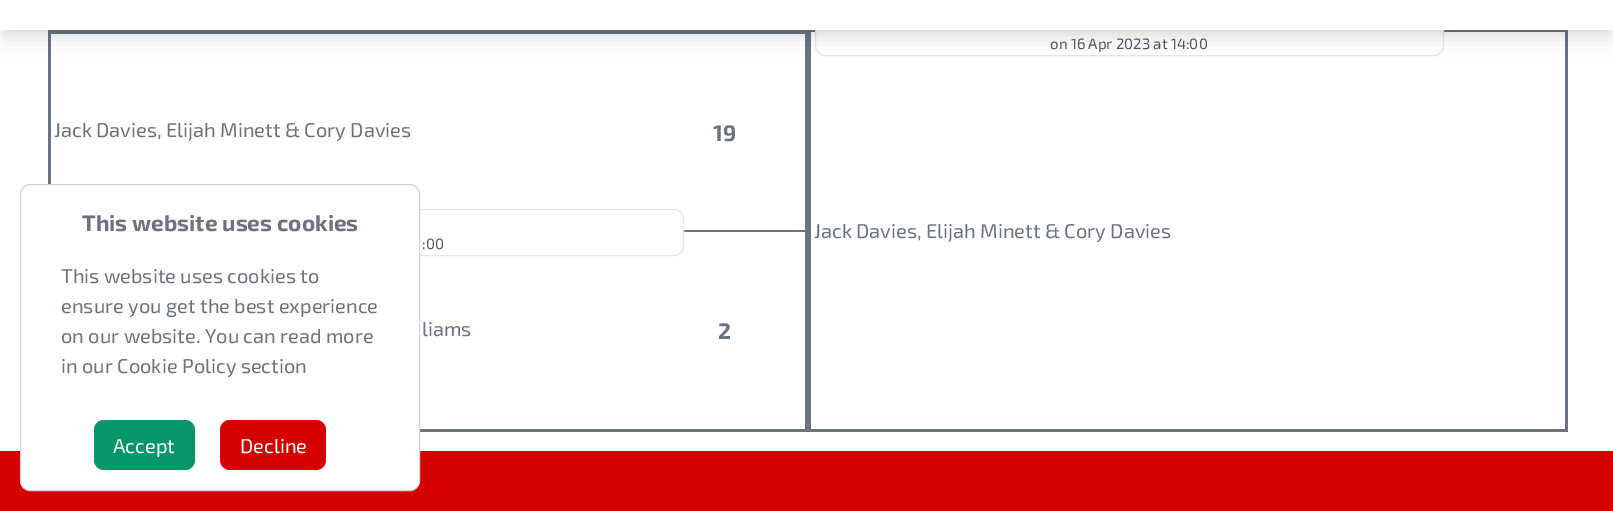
%!PS
<< /PageSize [1613 511] /PageUsesTransparency true >> setpagedevice
/rgb { dup -16 bitshift 255 div exch dup -8 bitshift 255 and 255 div exch 255 and 255 div setrgbcolor } def
/font { [ exch dup neg 0 0 3 -1 roll 0 0 ] selectfont } def
/text { moveto show } def
/alpha { dup .setfillconstantalpha .setstrokeconstantalpha } def
/roundrect { 5 dict begin { /r /h /w /y /x } { exch def } forall
  x r add y moveto x w add y 2 copy h add r arct x w add y h add x 1 index r arct
  x y h add x y r arct x y 2 copy exch w add exch r arct closepath end } def
/shadow { 12 dict begin { /a /b /q /h /w /y /x } { exch def } forall gsave /was 0 def
  9 -2 -9 { dup b mul 4 div /e exch def 1 sub .425 mul 2.718 exch exp 1 add a .99 .min exch div /now exch def
    1 1 now sub 1 was sub div sub alpha /was now def
    w h .min e 2 mul add 0 gt { x e sub y e sub w e 2 mul add h e 2 mul add
      q e add b .6 mul add w h .min 2 div e add .min 0 .max roundrect fill } if } for grestore end } def
0 .pushpdf14devicefilter
0 511 translate 1 -1 scale
4 setmiterlimit
/s1 { /Exo2-Regular 20 font 16#6B7280 rgb } def
/s2 { /Exo2-Bold 22.5 font 16#6B7280 rgb } def
/s3 { /Exo2-Regular 15 font 16#4B5563 rgb } def
/s4 { /Exo2-Regular 20 font 16#FFFFFF rgb } def
16#FFFFFF rgb
0 0 1613 511 rectfill
16#6B7280 rgb
48 30 760 4 rectfill
805 31 3 200 rectfill
48 31 3 153 rectfill
808 30 760 2 rectfill
1565 31 3 400 rectfill
808 429 760 3 rectfill
808 31 3 400 rectfill
16#FFFFFF rgb
815.5 9.5 628 46 9.5 roundrect gsave fill grestore
16#E5E7EB rgb
stroke
16#000000 rgb
3 -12 1608 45 0 4 0.05 shadow
4 -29 1606 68 0 9.5 0.1 shadow
16#FFFFFF rgb
0 0 1613 30 rectfill
16#6B7280 rgb
684 230 124 2 rectfill
s1
(Jack Davies, Elijah Minett & Cory Davies) 54 137 text
s2
(19) 713 141 text
805 231 3 200 rectfill
420 429 388 3 rectfill
16#E5E7EB rgb
55.5 209.5 628 46 9.5 roundrect stroke
s3
(:00) 422 249 text
s1
(liams) 422 336 text
s2
(2) 718 339 text
s3
(on 16 Apr 2023 at 14:00) 1050 49 text
s1
(Jack Davies, Elijah Minett & Cory Davies) 814 238 text
16#D50000 rgb
0 451 1613 60 rectfill
16#FFFFFF rgb
20.5 184.5 399 306 9.5 roundrect gsave fill grestore
16#D1D5DB rgb
stroke
s2
(This website uses cookies) 82 231 text
s1
(This website uses cookies to) 61 283 text
(ensure you get the best experience) 61 313 text
(on our website. You can read more) 61 343 text
(in our Cookie Policy section) 61 373 text
16#059669 rgb
94 420 101 50 10 roundrect fill
s4
(Accept) 113 453 text
16#D50000 rgb
220 420 106 50 10 roundrect fill
s4
(Decline) 240 453 text
.poppdf14devicefilter showpage
